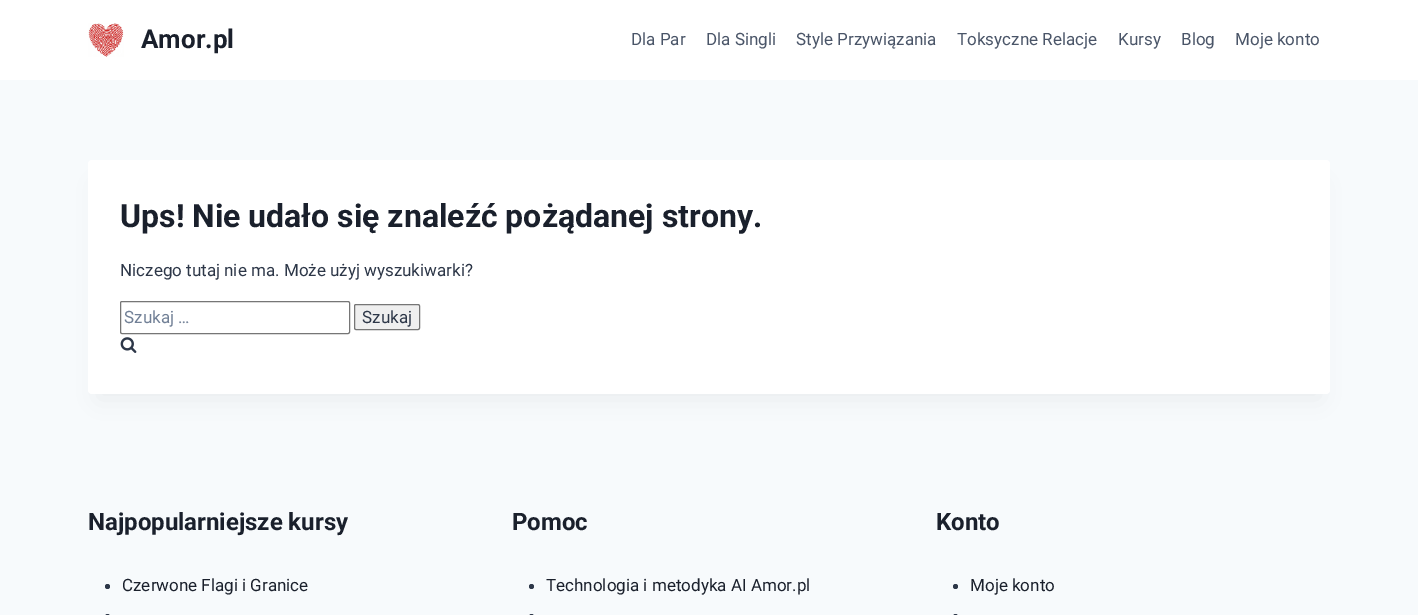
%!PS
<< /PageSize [1418 615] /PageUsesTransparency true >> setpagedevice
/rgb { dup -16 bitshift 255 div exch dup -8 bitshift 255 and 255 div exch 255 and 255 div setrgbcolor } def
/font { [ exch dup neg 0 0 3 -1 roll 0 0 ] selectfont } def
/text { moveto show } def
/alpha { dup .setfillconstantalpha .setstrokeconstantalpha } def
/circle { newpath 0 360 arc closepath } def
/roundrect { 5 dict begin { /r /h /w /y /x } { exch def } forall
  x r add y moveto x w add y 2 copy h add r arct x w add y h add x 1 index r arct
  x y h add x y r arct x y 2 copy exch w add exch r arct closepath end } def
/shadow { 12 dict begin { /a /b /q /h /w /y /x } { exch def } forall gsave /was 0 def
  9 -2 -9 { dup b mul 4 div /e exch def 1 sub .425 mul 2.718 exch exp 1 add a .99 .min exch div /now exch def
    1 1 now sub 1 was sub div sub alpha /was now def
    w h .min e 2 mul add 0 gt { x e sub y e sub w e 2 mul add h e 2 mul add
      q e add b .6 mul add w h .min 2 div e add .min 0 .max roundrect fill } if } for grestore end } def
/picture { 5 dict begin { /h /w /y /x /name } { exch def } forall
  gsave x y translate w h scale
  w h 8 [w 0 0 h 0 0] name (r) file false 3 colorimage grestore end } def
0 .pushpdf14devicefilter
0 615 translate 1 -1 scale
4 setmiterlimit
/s1 { /Roboto-Bold 26 font 16#1A202C rgb } def
/s2 { /Roboto-Regular 17 font 16#4A5568 rgb } def
/s3 { /Roboto-Bold 32 font 16#1A202C rgb } def
/s4 { /Roboto-Regular 17 font 16#2D3748 rgb } def
/s5 { /Roboto-Regular 17 font 16#718096 rgb } def
/s6 { /Roboto-Bold 24 font 16#1A202C rgb } def
/s7 { /Roboto-Regular 17 font 16#1A202C rgb } def
16#F7FAFC rgb
0 0 1418 615 rectfill
16#FFFFFF rgb
0 0 1418 80 rectfill
(pic1.raw) 88 23 36 34 picture
s1
(Amor.pl) 141 48 text
s2
(Dla Par) 631 45 text
(Dla Singli) 706 45 text
(Style Przywiązania) 796 45 text
(Toksyczne Relacje) 957 45 text
(Kursy) 1118 45 text
(Blog) 1181 45 text
(Moje konto) 1235 45 text
16#000000 rgb
98 185 1222 214 0 12.5 0.05 shadow
16#FFFFFF rgb
88 160 1242 234 4 roundrect fill
s3
(Ups! Nie udało się znaleźć pożądanej strony.) 120 227 text
s4
(Niczego tutaj nie ma. Może użyj wyszukiwarki?) 120 276 text
16#767676 rgb
120.5 301.5 229 32 1.5 roundrect stroke
s5
(Szukaj …) 124 323 text
16#EFEFEF rgb
354.5 304.5 65 25 1.5 roundrect gsave fill grestore
16#767676 rgb
stroke
s4
(Szukaj) 362 323 text
(pic2.raw) 120 337 17 16 picture
s6
(Najpopularniejsze kursy) 88 530 text
16#2D3748 rgb
107.5 586.5 2.5 circle fill
s7
(Czerwone Flagi i Granice) 122 591 text
16#2D3748 rgb
105 614 5 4 2.5 roundrect fill
s6
(Pomoc) 512 530 text
16#2D3748 rgb
531.5 586.5 2.5 circle fill
s7
(Technologia i metodyka AI Amor.pl) 546 591 text
16#2D3748 rgb
529 614 5 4 2.5 roundrect fill
s6
(Konto) 936 530 text
16#2D3748 rgb
955.5 586.5 2.5 circle fill
s7
(Moje konto) 970 591 text
16#2D3748 rgb
953 614 5 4 2.5 roundrect fill
.poppdf14devicefilter showpage
